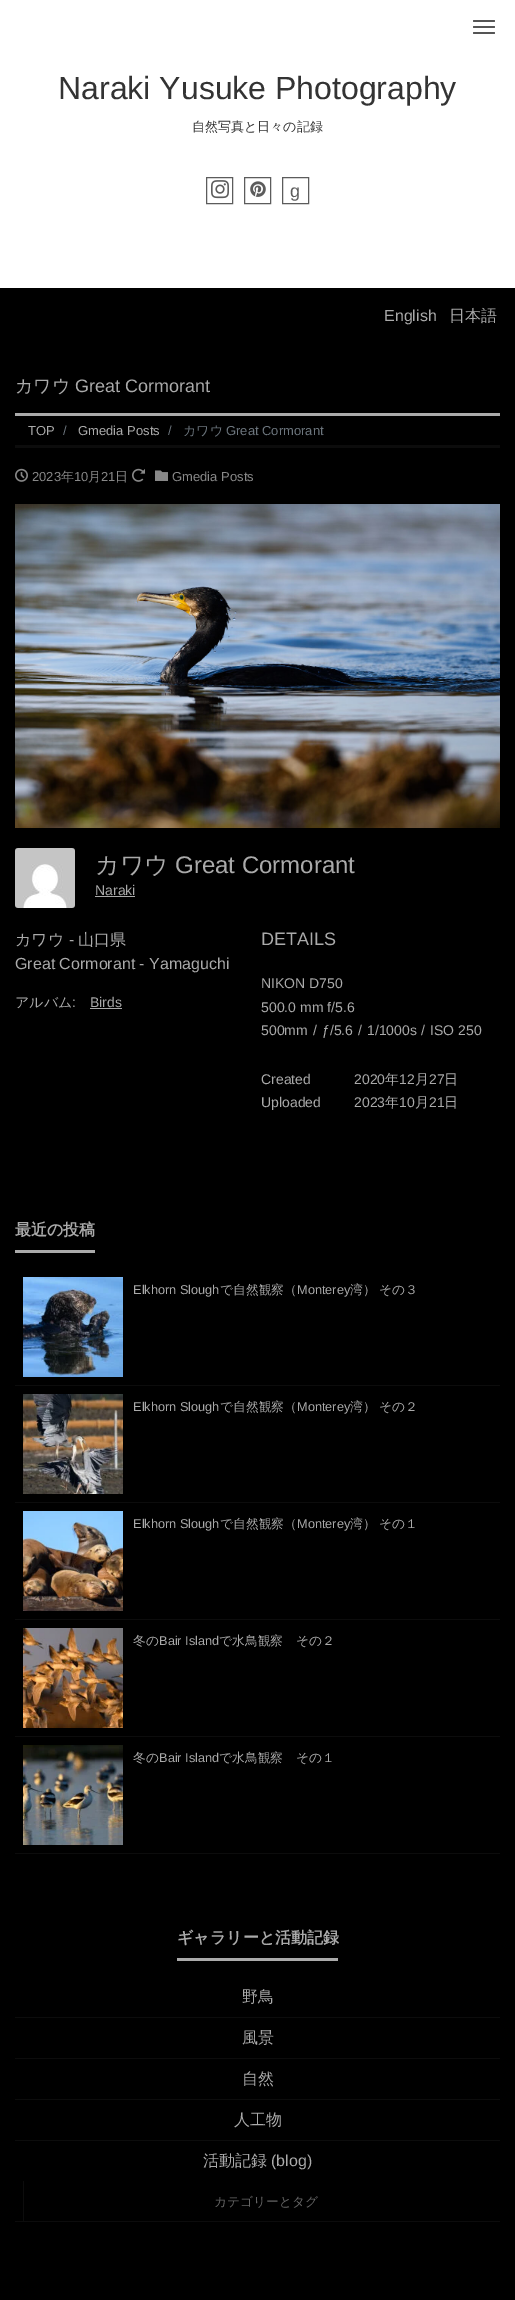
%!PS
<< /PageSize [515 2300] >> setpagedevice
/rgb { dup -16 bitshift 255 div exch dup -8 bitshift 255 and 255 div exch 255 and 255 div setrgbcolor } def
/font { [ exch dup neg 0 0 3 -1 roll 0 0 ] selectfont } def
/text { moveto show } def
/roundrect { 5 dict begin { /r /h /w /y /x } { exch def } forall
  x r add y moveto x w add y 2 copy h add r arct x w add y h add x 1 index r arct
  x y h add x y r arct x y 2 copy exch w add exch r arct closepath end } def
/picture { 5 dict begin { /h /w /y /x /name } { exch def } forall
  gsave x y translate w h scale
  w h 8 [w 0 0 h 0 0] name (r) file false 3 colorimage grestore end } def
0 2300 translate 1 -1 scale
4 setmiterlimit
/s1 { /LiberationSans-Regular 32 font 16#333333 rgb } def
/s2 { /WenQuanYiZenHei-Medium 13 font 16#333333 rgb } def
/s3 { /LiberationSans-Regular 18 font 16#5C5C5C rgb } def
/s4 { /LiberationSans-Regular 16 font 16#AAAAAA rgb } def
/s5 { /WenQuanYiZenHei-Medium 16 font 16#AAAAAA rgb } def
/s6 { /WenQuanYiZenHei-Medium 18 font 16#AAAAAA rgb } def
/s7 { /LiberationSans-Regular 18 font 16#AAAAAA rgb } def
/s8 { /LiberationSans-Regular 13 font 16#AAAAAA rgb } def
/s9 { /LiberationSans-Regular 13 font 16#6C757D rgb } def
/s10 { /WenQuanYiZenHei-Medium 13 font 16#6C757D rgb } def
/s11 { /LiberationSans-Regular 13 font 16#888888 rgb } def
/s12 { /WenQuanYiZenHei-Medium 13 font 16#888888 rgb } def
/s13 { /WenQuanYiZenHei-Medium 24 font 16#AAAAAA rgb } def
/s14 { /LiberationSans-Regular 24 font 16#AAAAAA rgb } def
/s15 { /LiberationSans-Regular 14 font 16#AAAAAA rgb } def
/s16 { /WenQuanYiZenHei-Medium 14 font 16#AAAAAA rgb } def
/s17 { /WenQuanYiZenHei-Bold 16 font 16#AAAAAA rgb } def
/s18 { /LiberationSans-Regular 12.75 font 16#AAAAAA rgb } def
/s19 { /WenQuanYiZenHei-Medium 12.75 font 16#AAAAAA rgb } def
/s20 { /WenQuanYiZenHei-Medium 12.75 font 16#666666 rgb } def
16#000000 rgb
0 0 515 2300 rectfill
16#FFFFFF rgb
0 0 515 288 rectfill
16#555555 rgb
473 20 22 2 1 roundrect fill
473 26 22 2 1 roundrect fill
473 32 22 2 1 roundrect fill
s1
(Naraki Yusuke Photography) 58 99 text
s2
(自然写真と日々の記録) 192 131 text
16#5C5C5C rgb
206.5 177.5 26 26 rectstroke
(pic1.raw) 211 180 18 19 picture
244.5 177.5 26 26 rectstroke
(pic2.raw) 250 181 16 16 picture
282.5 177.5 26 26 rectstroke
s3
(g) 290 197 text
s4
(English) 384 321 text
s5
(日本語) 449 321 text
s6
(カワウ) 15 392 text
s7
(Great Cormorant) 75 392 text
15 413 485 3 rectfill
16#0C0C0C rgb
15 445 485 3 rectfill
s8
(TOP) 28 435 text
s9
(/) 63 435 text
s8
(Gmedia Posts) 78 435 text
s9
(/) 168 435 text
s10
(カワウ) 183 435 text
s9
(Great Cormorant) 226 435 text
(pic3.raw) 15 468 13 14 picture
s11
(2023) 32 481 text
s12
(年) 61 481 text
s11
(10) 74 481 text
s12
(月) 88 481 text
s11
(21) 101 481 text
s12
(日) 115 481 text
(pic4.raw) 132 468 13 14 picture
(pic5.raw) 155 470 13 11 picture
s11
(Gmedia Posts) 172 481 text
(pic6.raw) 15 504 485 324 picture
(pic7.raw) 15 848 60 60 picture
s13
(カワウ) 95 873 text
s14
(Great Cormorant) 175 873 text
s15
(Naraki) 95 895 text
95 896 40 1 rectfill
s5
(カワウ) 15 945 text
s4
(-) 69 945 text
s5
(山口県) 78 945 text
s4
(Great Cormorant - Yamaguchi) 15 969 text
s16
(アルバム) 15 1007 text
s15
(:) 72 1007 text
(Birds) 90 1007 text
90 1008 32 1 rectfill
s7
(DETAILS) 261 945 text
s15
(NIKON D750) 261 988 text
(500.0 mm f/5.6) 261 1012 text
(500mm) 261 1035 text
(/) 313 1035 text
(ƒ/5.6) 322 1035 text
(/) 358 1035 text
(1/1000s) 367 1035 text
(/) 421 1035 text
(ISO 250) 430 1035 text
(Created) 261 1084 text
(2020) 354 1084 text
s16
(年) 385 1084 text
s15
(12) 399 1084 text
s16
(月) 415 1084 text
s15
(27) 429 1084 text
s16
(日) 444 1084 text
s15
(Uploaded) 261 1107 text
(2023) 354 1107 text
s16
(年) 385 1107 text
s15
(10) 399 1107 text
s16
(月) 415 1107 text
s15
(21) 429 1107 text
s16
(日) 444 1107 text
15 1250 80 3 rectfill
s17
(最近の投稿) 15 1235 text
16#0C0C0C rgb
15 1385 485 1 rectfill
(pic8.raw) 23 1277 100 100 picture
s18
(Elkhorn Slough) 133 1294 text
s19
(で自然観察（) 220 1294 text
s18
(Monterey) 297 1294 text
s19
(湾） その３) 350 1294 text
16#0C0C0C rgb
15 1502 485 1 rectfill
(pic9.raw) 23 1394 100 100 picture
s18
(Elkhorn Slough) 133 1411 text
s19
(で自然観察（) 220 1411 text
s18
(Monterey) 297 1411 text
s19
(湾） その２) 350 1411 text
16#0C0C0C rgb
15 1619 485 1 rectfill
(pic10.raw) 23 1511 100 100 picture
s18
(Elkhorn Slough) 133 1528 text
s19
(で自然観察（) 220 1528 text
s18
(Monterey) 297 1528 text
s19
(湾） その１) 350 1528 text
16#0C0C0C rgb
15 1736 485 1 rectfill
(pic11.raw) 23 1628 100 100 picture
s19
(冬の) 133 1645 text
s18
(Bair Island) 159 1645 text
s19
(で水鳥観察　その２) 219 1645 text
16#0C0C0C rgb
15 1853 485 1 rectfill
(pic12.raw) 23 1745 100 100 picture
s19
(冬の) 133 1762 text
s18
(Bair Island) 159 1762 text
s19
(で水鳥観察　その１) 219 1762 text
177 1958 161 3 rectfill
s17
(ギャラリーと活動記録) 177 1943 text
16#0C0C0C rgb
15 2017 485 1 rectfill
s5
(野鳥) 242 2002 text
16#0C0C0C rgb
15 2058 485 1 rectfill
s5
(風景) 242 2043 text
16#0C0C0C rgb
15 2099 485 1 rectfill
s5
(自然) 242 2084 text
16#0C0C0C rgb
15 2140 485 1 rectfill
s5
(人工物) 234 2125 text
16#0C0C0C rgb
15 2221 485 1 rectfill
s5
(活動記録) 203 2166 text
s4
(\(blog\)) 271 2166 text
16#0C0C0C rgb
23 2181 1 40 rectfill
s20
(カテゴリーとタグ) 214 2206 text
showpage
